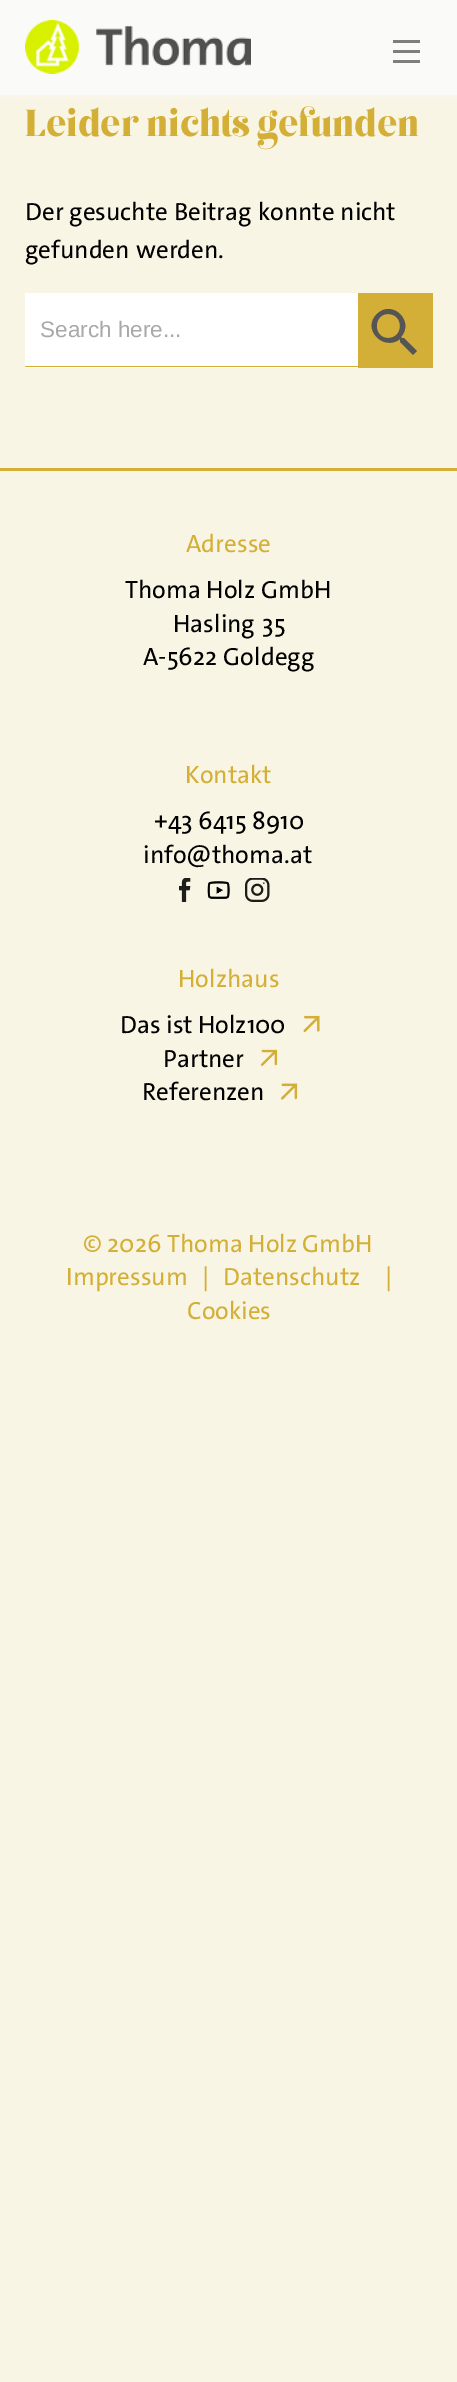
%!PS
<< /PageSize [457 2382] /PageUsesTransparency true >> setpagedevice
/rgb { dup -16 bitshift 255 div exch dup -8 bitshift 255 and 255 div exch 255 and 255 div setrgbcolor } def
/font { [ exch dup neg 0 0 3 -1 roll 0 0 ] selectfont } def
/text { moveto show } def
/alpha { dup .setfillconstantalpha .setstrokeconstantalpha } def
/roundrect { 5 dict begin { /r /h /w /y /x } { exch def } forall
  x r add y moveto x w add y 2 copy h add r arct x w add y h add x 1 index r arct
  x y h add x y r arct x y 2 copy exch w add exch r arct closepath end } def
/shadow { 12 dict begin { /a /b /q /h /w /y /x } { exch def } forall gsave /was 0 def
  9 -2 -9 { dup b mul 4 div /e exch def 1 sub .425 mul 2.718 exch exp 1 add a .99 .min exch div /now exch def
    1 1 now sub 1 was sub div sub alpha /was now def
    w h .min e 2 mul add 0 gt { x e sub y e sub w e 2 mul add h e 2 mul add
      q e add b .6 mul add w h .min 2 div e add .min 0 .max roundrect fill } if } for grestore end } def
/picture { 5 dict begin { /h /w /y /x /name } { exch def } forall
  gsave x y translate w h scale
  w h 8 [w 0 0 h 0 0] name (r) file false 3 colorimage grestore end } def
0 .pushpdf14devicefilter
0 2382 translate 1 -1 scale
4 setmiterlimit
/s1 { /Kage-Black 45 font 16#D4AF37 rgb } def
/s2 { /LiberationSans-Regular 22.5 font 16#A9A9A9 rgb } def
/s3 { /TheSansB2-Medium 25 font 16#D4AF37 rgb } def
/s4 { /TheSansB2-Medium 25 font 16#000000 rgb } def
16#F9F5E5 rgb
0 0 457 2382 rectfill
16#FAFAFA rgb
0 0 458 95 0 6 0.5 shadow
16#FAFAF8 rgb
0 0 457 95 rectfill
(pic1.raw) 25 20 226 54 picture
16#7E7E7E rgb
393 40 27 3 rectfill
393 50 27 3 rectfill
393 60 27 3 rectfill
s1
(Leider nichts gefunden) 25 136 text
/TheSansB2-Medium 25 font
16#000000 rgb
25 220 moveto 0.5 0 32 (Der gesuchte Beitrag konnte nicht) widthshow
25 258 moveto 1 0 32 (gefunden werden.) widthshow
16#FFFFFF rgb
25 293 333 75 rectfill
16#D4AF37 rgb
25 366 333 1 rectfill
s2
(Search here...) 40 337 text
16#D4AF37 rgb
358 293 75 75 rectfill
16#555555 rgb
404 338 moveto 402 338 lineto 401 337 lineto 415 321 392 299 377 314 curveto 361 329 384 352 400 339 curveto 400 340 lineto 400 342 lineto 413 355 lineto 417 351 lineto closepath 388 338 moveto 373 338 373 314 388 314 curveto 404 314 404 338 388 338 curveto closepath fill
16#D4AF37 rgb
0 468 457 3 rectfill
s3
(Adresse) 186 552 text
s4
(Thoma Holz GmbH) 125 598 text
173 632 moveto 2 0 32 (Hasling 35) widthshow
143 665 moveto 1 0 32 (A-5622 Goldegg) widthshow
s3
(Kontakt) 185 783 text
s4
(+43 6415 8910) 154 829 text
(info@thoma.at) 143 863 text
(pic2.raw) 179 878 12 24 picture
(pic3.raw) 207 881 23 18 picture
(pic4.raw) 245 878 25 24 picture
s3
(Holzhaus) 178 987 text
s4
(Das ist Holz100) 120 1033 text
(pic5.raw) 303 1015 17 18 picture
(Partner) 163 1067 text
(pic6.raw) 260 1049 18 18 picture
(Referenzen) 142 1100 text
(pic7.raw) 280 1083 18 17 picture
s3
(© 2026 Thoma Holz GmbH) 83 1252 text
(Impressum) 66 1285 text
(|) 202 1285 text
(Datenschutz) 223 1285 text
(|) 385 1285 text
(Cookies) 187 1319 text
.poppdf14devicefilter showpage
